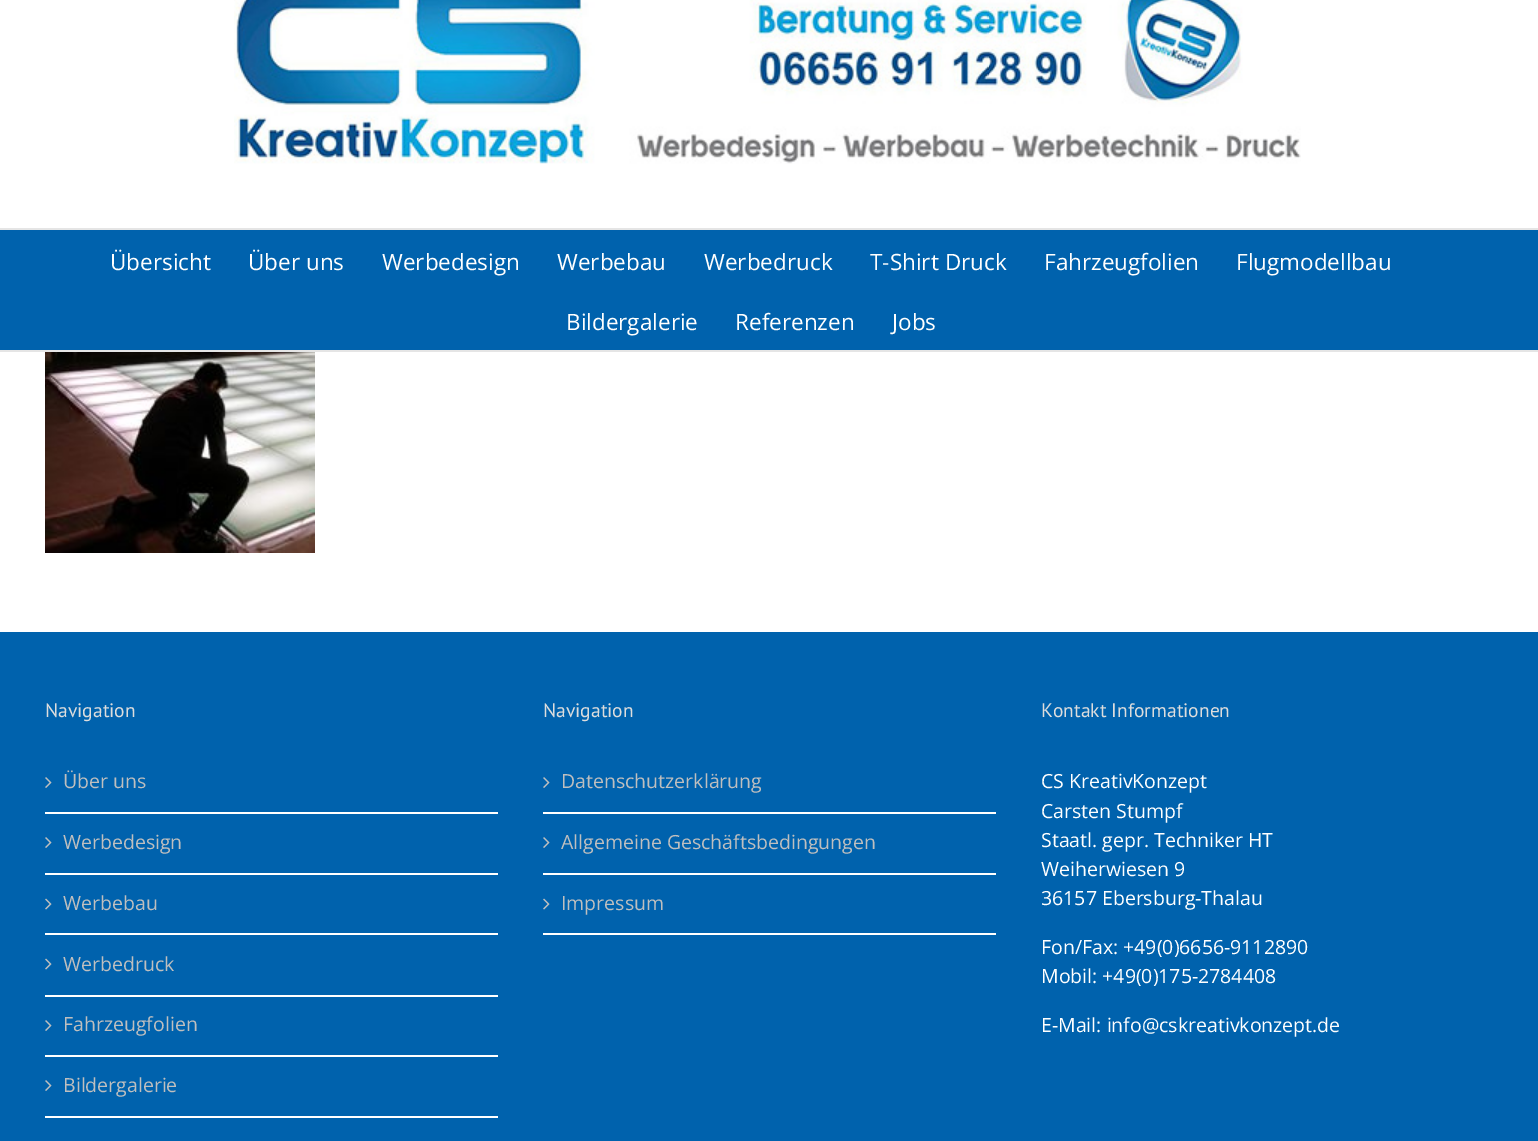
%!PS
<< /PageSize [1538 1141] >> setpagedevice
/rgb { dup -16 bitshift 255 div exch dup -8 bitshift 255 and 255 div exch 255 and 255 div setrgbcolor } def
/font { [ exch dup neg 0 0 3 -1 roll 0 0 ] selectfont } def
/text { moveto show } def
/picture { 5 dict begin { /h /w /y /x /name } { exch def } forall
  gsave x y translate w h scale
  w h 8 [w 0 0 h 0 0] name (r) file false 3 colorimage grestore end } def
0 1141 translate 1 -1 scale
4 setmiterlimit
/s1 { /OpenSans-Regular 22.5 font 16#FFFFFF rgb } def
/s2 { /PTSans-Regular 19.5 font 16#DDDDDD rgb } def
/s3 { /OpenSans-Regular 19.5 font 16#BFBFBF rgb } def
/s4 { /OpenSans-Regular 19.5 font 16#FFFFFF rgb } def
16#FFFFFF rgb
0 0 1538 1141 rectfill
16#E5E5E5 rgb
0 228 1538 2 rectfill
(pic1.raw) 234 0 1067 164 picture
16#0062AD rgb
0 230 1538 120 rectfill
16#E5E5E5 rgb
0 350 1538 2 rectfill
s1
(Übersicht) 110 270 text
(Über uns) 248 270 text
(Werbedesign) 382 270 text
(Werbebau) 557 270 text
(Werbedruck) 704 270 text
(T-Shirt Druck) 870 270 text
(Fahrzeugfolien) 1044 270 text
(Flugmodellbau) 1236 270 text
(Bildergalerie) 566 330 text
(Referenzen) 735 330 text
(Jobs) 892 330 text
(pic2.raw) 45 352 270 201 picture
16#0062AD rgb
0 632 1538 509 rectfill
s2
(Navigation) 45 717 text
16#FFFFFF rgb
45 812 453 2 rectfill
(pic3.raw) 45 777 7 11 picture
s3
(Über uns) 63 788 text
16#FFFFFF rgb
45 873 453 2 rectfill
(pic3.raw) 45 837 7 11 picture
s3
(Werbedesign) 63 849 text
16#FFFFFF rgb
45 933 453 2 rectfill
(pic4.raw) 45 898 7 12 picture
s3
(Werbebau) 63 910 text
16#FFFFFF rgb
45 995 453 2 rectfill
(pic4.raw) 45 958 7 12 picture
s3
(Werbedruck) 63 971 text
16#FFFFFF rgb
45 1055 453 2 rectfill
(pic3.raw) 45 1020 7 11 picture
s3
(Fahrzeugfolien) 63 1031 text
16#FFFFFF rgb
45 1116 453 2 rectfill
(pic3.raw) 45 1080 7 11 picture
s3
(Bildergalerie) 63 1092 text
s2
(Navigation) 543 717 text
16#FFFFFF rgb
543 812 453 2 rectfill
(pic3.raw) 543 777 7 11 picture
s3
(Datenschutzerklärung) 561 788 text
16#FFFFFF rgb
543 873 453 2 rectfill
(pic3.raw) 543 837 7 11 picture
s3
(Allgemeine Geschäftsbedingungen) 561 849 text
16#FFFFFF rgb
543 933 453 2 rectfill
(pic4.raw) 543 898 7 12 picture
s3
(Impressum) 561 910 text
s2
(Kontakt Informationen) 1041 717 text
s4
(CS KreativKonzept) 1041 788 text
(Carsten Stumpf) 1041 818 text
(Staatl. gepr. Techniker HT) 1041 847 text
(Weiherwiesen 9) 1041 876 text
(36157 Ebersburg-Thalau) 1041 905 text
(Fon/Fax: +49\(0\)6656-9112890) 1041 954 text
(Mobil: +49\(0\)175-2784408) 1041 983 text
(E-Mail: info@cskreativkonzept.de) 1041 1032 text
showpage
